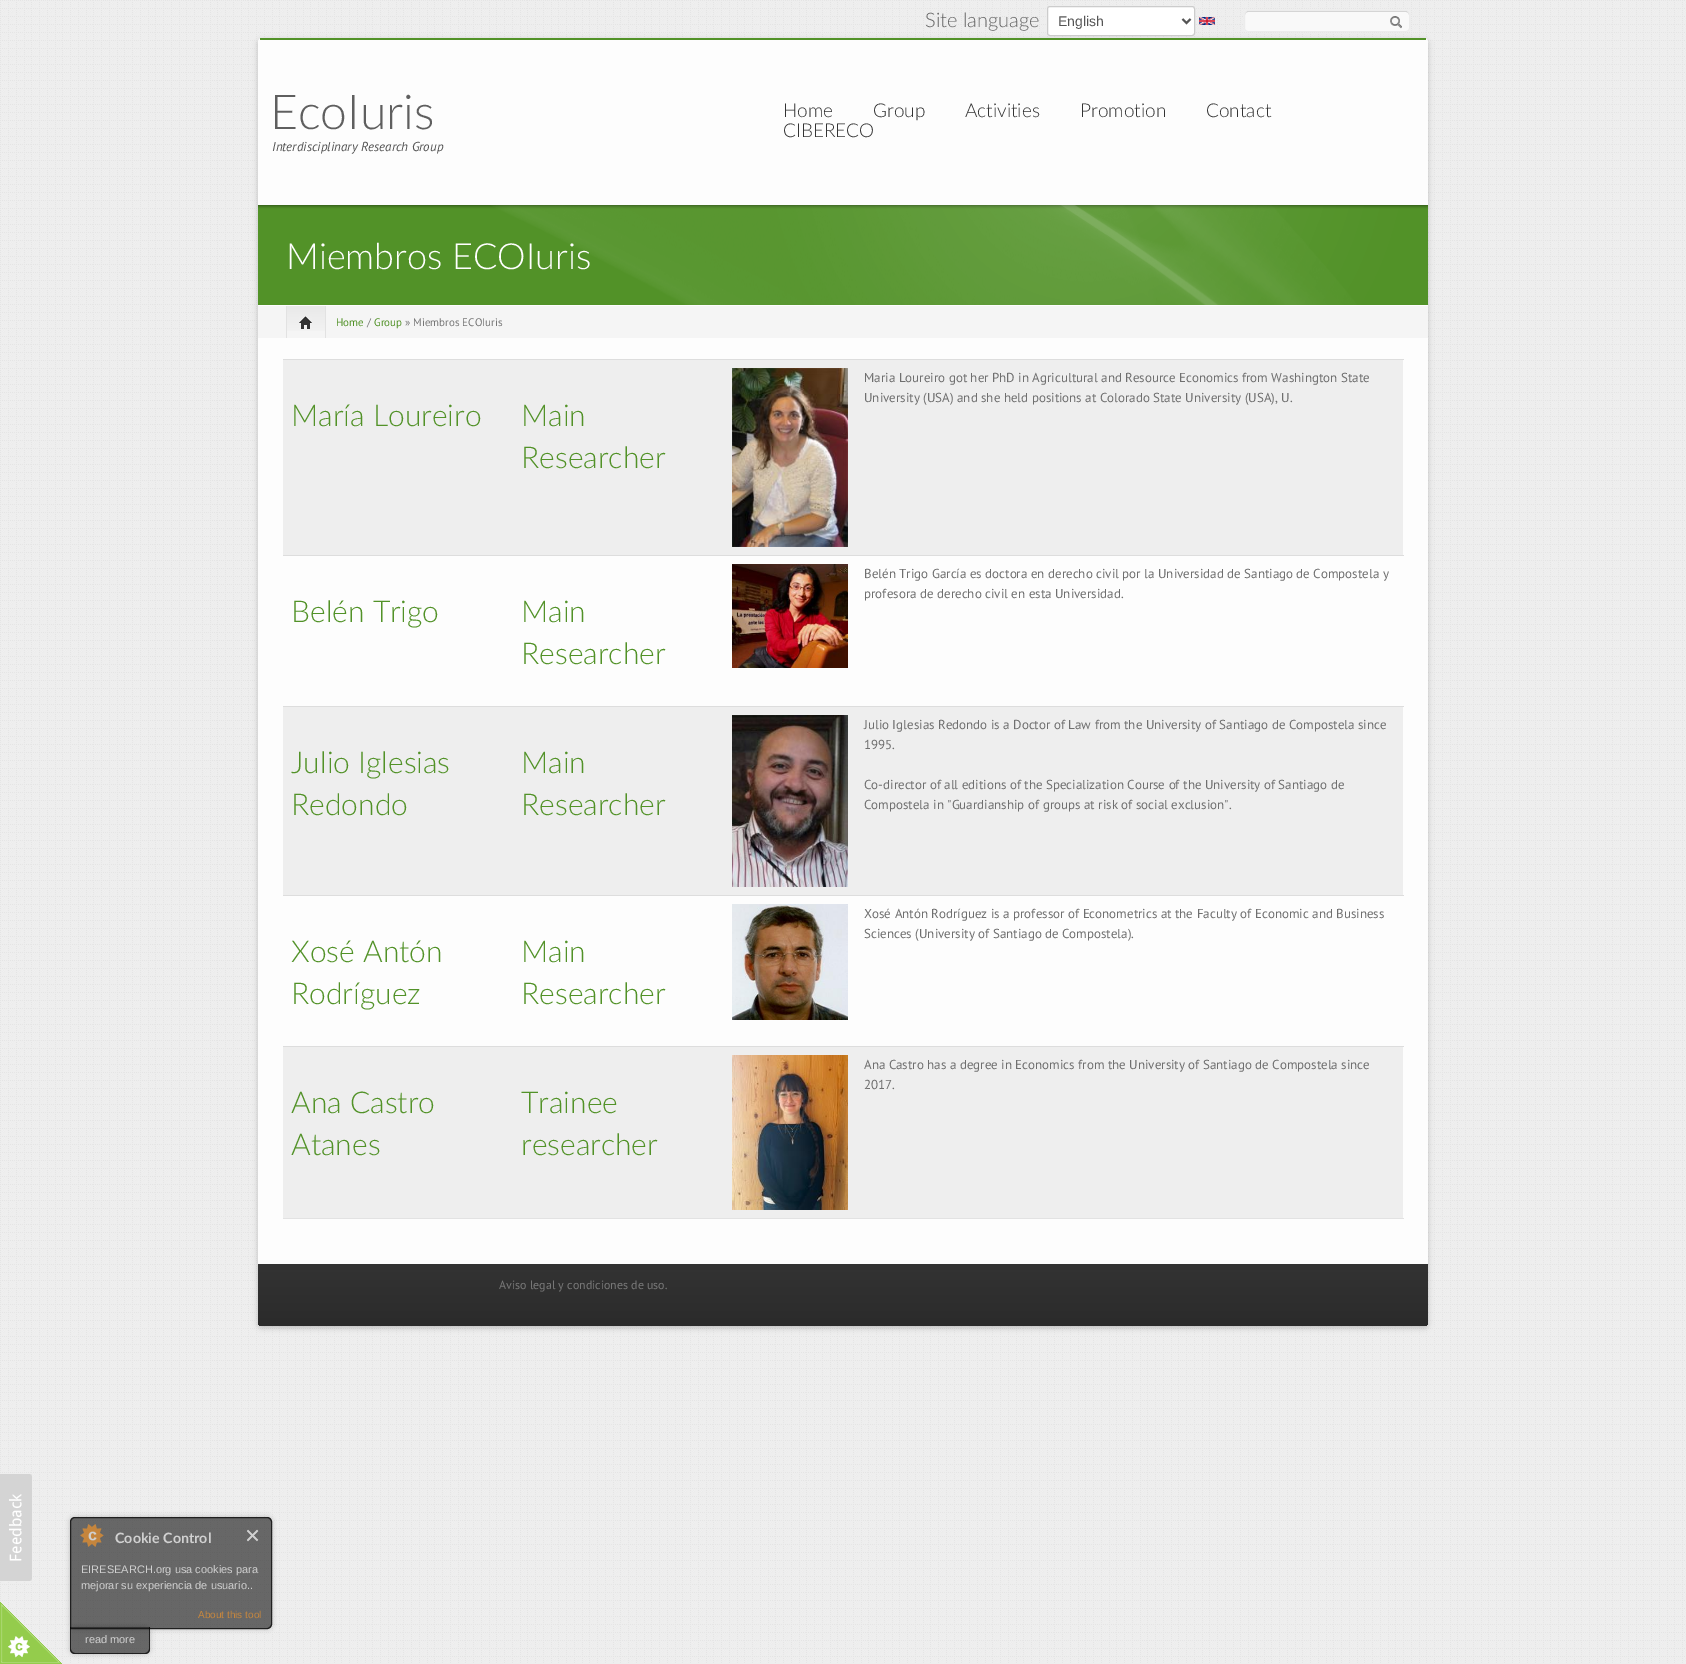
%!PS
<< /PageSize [1686 1664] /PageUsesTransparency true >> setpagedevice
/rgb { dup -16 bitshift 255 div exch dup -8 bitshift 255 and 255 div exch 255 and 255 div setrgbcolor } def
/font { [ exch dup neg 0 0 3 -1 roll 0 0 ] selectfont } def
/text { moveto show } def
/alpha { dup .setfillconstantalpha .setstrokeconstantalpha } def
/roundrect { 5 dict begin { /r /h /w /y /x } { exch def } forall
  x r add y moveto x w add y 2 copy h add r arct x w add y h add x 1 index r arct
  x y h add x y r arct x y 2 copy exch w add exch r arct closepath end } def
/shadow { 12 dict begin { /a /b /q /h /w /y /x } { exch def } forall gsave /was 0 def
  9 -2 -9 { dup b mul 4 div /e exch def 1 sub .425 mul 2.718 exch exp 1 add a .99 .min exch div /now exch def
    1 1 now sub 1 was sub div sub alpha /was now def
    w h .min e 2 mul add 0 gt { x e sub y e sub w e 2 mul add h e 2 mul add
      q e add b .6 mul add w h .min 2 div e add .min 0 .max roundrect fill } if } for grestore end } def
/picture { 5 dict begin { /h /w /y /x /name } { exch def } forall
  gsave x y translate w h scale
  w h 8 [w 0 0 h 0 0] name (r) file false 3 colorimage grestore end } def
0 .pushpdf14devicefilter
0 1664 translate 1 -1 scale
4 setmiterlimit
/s1 { /Lato-Light 20 font 16#666666 rgb } def
/s2 { /LiberationSans-Regular 14 font 16#555555 rgb } def
/s3 { /Lato-Light 48 font 16#5F5F5F rgb } def
/s4 { /PTSans-Italic 13 font 16#555555 rgb } def
/s5 { /Lato-Light 19 font 16#333333 rgb } def
/s6 { /Lato-Light 36 font 16#FFFFFF rgb } def
/s7 { /PTSans-Regular 11 font 16#529228 rgb } def
/s8 { /PTSans-Regular 11 font 16#777777 rgb } def
/s9 { /PTSans-Regular 13 font 16#6F6F6F rgb } def
/s10 { /Lato-Light 30 font 16#529228 rgb } def
/s11 { /PTSans-Regular 12 font 16#777777 rgb } def
/s12 { /Lato-Bold 14.25 font 16#D0D0D0 rgb } def
/s13 { /LiberationSans-Regular 11 font 16#D0D0D0 rgb } def
/s14 { /LiberationSans-Regular 10 font 16#C6863D rgb } def
16#FFFFFF rgb
0 0 1686 1664 rectfill
(pic1.raw) 0 0 1686 1664 picture
16#323232 rgb
258 40 1170 1288 4 3 0.25 shadow
s1
(Site language) 925 27 text
16#FFFFFF rgb
1047.5 6.5 147 29 2.5 roundrect gsave fill grestore
16#CCCCCC rgb
stroke
16#555555 rgb
2 setlinewidth
1182.5 19 moveto 1186.5 23 lineto 1190.5 19 lineto stroke
s2
(English) 1058 26 text
(pic2.raw) 1199 17 16 8 picture
16#F9F9F9 rgb
1244 10 166 22 4 roundrect fill
16#CCCCCC rgb
1248 12 moveto 1406 12 lineto 1408 12 1409 13 1409 15 curveto 1409 13 1408 11 1406 11 curveto 1248 11 lineto 1246 11 1245 13 1245 15 curveto 1245 13 1246 12 1248 12 curveto closepath fill
16#ECECEC rgb
1 setlinewidth
1244.5 10.5 165 21 3.5 roundrect stroke
(pic3.raw) 1390 16 12 13 picture
16#FDFDFD rgb
258 38 1170 1288 4 roundrect fill
16#529228 rgb
260 38 1166 2 rectfill
s3
(EcoIuris) 270 129 text
s4
(Interdisciplinary Research Group) 272 151 text
s5
(Home) 783 117 text
(Group) 873 117 text
(Activities) 965 117 text
(Promotion) 1080 117 text
(Contact) 1206 117 text
(CIBERECO) 783 137 text
16#529228 rgb
258 205 1170 100 rectfill
(pic4.raw) 258 205 1170 100 picture
s6
(Miembros ECOIuris) 286 269 text
16#F5F5F5 rgb
258 306 1170 32 rectfill
gsave 287 306 moveto 325 306 lineto 325 331 lineto 287 331 lineto closepath clip newpath
<< /ShadingType 2 /ColorSpace /DeviceRGB /Coords [306 306 306 338] /Extend [true true] /Function << /FunctionType 2 /Domain [0 1] /C0 [0.914 0.914 0.914] /C1 [0.961 0.961 0.961] /N 1 >> >> shfill grestore
16#E2E2E2 rgb
325 306 1 32 rectfill
286 306 1 32 rectfill
(pic5.raw) 299 316 13 13 picture
s7
(Home) 336 326 text
s8
(/) 367 326 text
s7
(Group) 374 326 text
s8
(» Miembros ECOIuris) 405 326 text
16#EEEEEE rgb
283 360 1120 195 rectfill
(pic6.raw) 732 368 116 179 picture
16#DDDDDD rgb
283 359 1121 1 rectfill
s9
(Maria Loureiro got her PhD in Agricultural and Resource Economics from Washington State) 864 382 text
(University \(USA\) and she held positions at Colorado State University \(USA\), U.) 864 402 text
s10
(María Loureiro) 291 426 text
(Main) 521 426 text
(Researcher) 521 468 text
(pic7.raw) 732 564 116 104 picture
16#DDDDDD rgb
283 555 1121 1 rectfill
s9
(Belén Trigo García es doctora en derecho civil por la Universidad de Santiago de Compostela y) 864 578 text
(profesora de derecho civil en esta Universidad.) 864 598 text
s10
(Belén Trigo) 291 622 text
(Main) 521 622 text
(Researcher) 521 664 text
16#EEEEEE rgb
283 707 1120 188 rectfill
s10
(Julio Iglesias) 291 773 text
(Redondo) 291 815 text
(Main) 521 773 text
(Researcher) 521 815 text
(pic8.raw) 732 715 116 172 picture
16#DDDDDD rgb
283 706 1121 1 rectfill
s9
(Julio Iglesias Redondo is a Doctor of Law from the University of Santiago de Compostela since) 864 729 text
(1995.) 864 749 text
(Co-director of all editions of the Specialization Course of the University of Santiago de) 864 789 text
(Compostela in "Guardianship of groups at risk of social exclusion".) 864 809 text
(pic9.raw) 732 904 116 116 picture
16#DDDDDD rgb
283 895 1121 1 rectfill
s9
(Xosé Antón Rodríguez is a professor of Econometrics at the Faculty of Economic and Business) 864 918 text
(Sciences \(University of Santiago de Compostela\).) 864 938 text
s10
(Xosé Antón) 291 962 text
(Rodríguez) 291 1004 text
(Main) 521 962 text
(Researcher) 521 1004 text
16#EEEEEE rgb
283 1047 1120 171 rectfill
16#E2E2E2 rgb
283 1218 1121 1 rectfill
(pic10.raw) 732 1055 116 155 picture
16#DDDDDD rgb
283 1046 1121 1 rectfill
s9
(Ana Castro has a degree in Economics from the University of Santiago de Compostela since) 864 1069 text
(2017.) 864 1089 text
s10
(Ana Castro) 291 1113 text
(Atanes) 291 1155 text
(Trainee) 521 1113 text
(researcher) 521 1155 text
gsave 258 1264 moveto 1428 1264 lineto 1428 1322 lineto 1428 1324 1426 1326 1424 1326 curveto 262 1326 lineto 260 1326 258 1324 258 1322 curveto closepath clip newpath
<< /ShadingType 2 /ColorSpace /DeviceRGB /Coords [843 1264 843 1326] /Extend [true true] /Function << /FunctionType 2 /Domain [0 1] /C0 [0.2 0.2 0.2] /C1 [0.169 0.169 0.169] /N 1 >> >> shfill grestore
s11
(Aviso legal y condiciones de uso.) 499 1289 text
16#D4D4D4 rgb
0 1474 moveto 29 1474 lineto 30.5 1474 32 1475.5 32 1477 curveto 32 1578 lineto 32 1579.5 30.5 1581 29 1581 curveto 0 1581 lineto closepath fill
(pic11.raw) 9 1494 13 67 picture
(pic12.raw) 0 1602 62 62 picture
gsave
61 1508 moveto 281 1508 lineto 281 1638 lineto 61 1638 lineto closepath 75 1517 moveto 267 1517 lineto 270 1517 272 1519 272 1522 curveto 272 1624 lineto 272 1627 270 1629 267 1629 curveto 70 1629 lineto 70 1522 lineto 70 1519 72 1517 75 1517 curveto closepath eoclip newpath
16#000000 rgb
70 1517 202 112 5 2.5 0.21 shadow
grestore
0.62 alpha
16#141414 rgb
75 1517 moveto 267 1517 lineto 270 1517 272 1519 272 1522 curveto 272 1624 lineto 272 1627 270 1629 267 1629 curveto 70 1629 lineto 70 1522 lineto 70 1519 72 1517 75 1517 curveto closepath fill
0.69 alpha
16#000000 rgb
75 1517.5 moveto 267 1517.5 lineto 269.5 1517.5 271.5 1519.5 271.5 1522 curveto 271.5 1624 lineto 271.5 1626.5 269.5 1628.5 267 1628.5 curveto 70.5 1628.5 lineto 70.5 1522 lineto 70.5 1519.5 72.5 1517.5 75 1517.5 curveto closepath stroke
1 alpha
(pic13.raw) 80 1524 24 23 picture
s12
(Cookie Control) 115 1543 text
(pic14.raw) 247 1529 12 13 picture
s13
(EIRESEARCH.org usa cookies para) 81 1573 text
(mejorar su experiencia de usuario..) 81 1589 text
s14
(About this tool) 198 1618 text
gsave
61 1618 moveto 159 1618 lineto 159 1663 lineto 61 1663 lineto closepath 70 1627 moveto 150 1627 lineto 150 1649 lineto 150 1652 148 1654 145 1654 curveto 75 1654 lineto 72 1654 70 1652 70 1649 curveto closepath eoclip newpath
16#000000 rgb
70 1627 80 27 5 2.5 0.21 shadow
grestore
0.62 alpha
16#141414 rgb
70 1627 moveto 150 1627 lineto 150 1649 lineto 150 1652 148 1654 145 1654 curveto 75 1654 lineto 72 1654 70 1652 70 1649 curveto closepath fill
0.69 alpha
16#000000 rgb
70 1627 moveto 150 1627 lineto 150 1649 lineto 150 1652 148 1654 145 1654 curveto 75 1654 lineto 72 1654 70 1652 70 1649 curveto closepath 71 1627 moveto 149 1627 lineto 149 1649 lineto 149 1651 147 1653 145 1653 curveto 75 1653 lineto 73 1653 71 1651 71 1649 curveto closepath eofill
1 alpha
s13
(read more) 85 1643 text
.poppdf14devicefilter showpage
